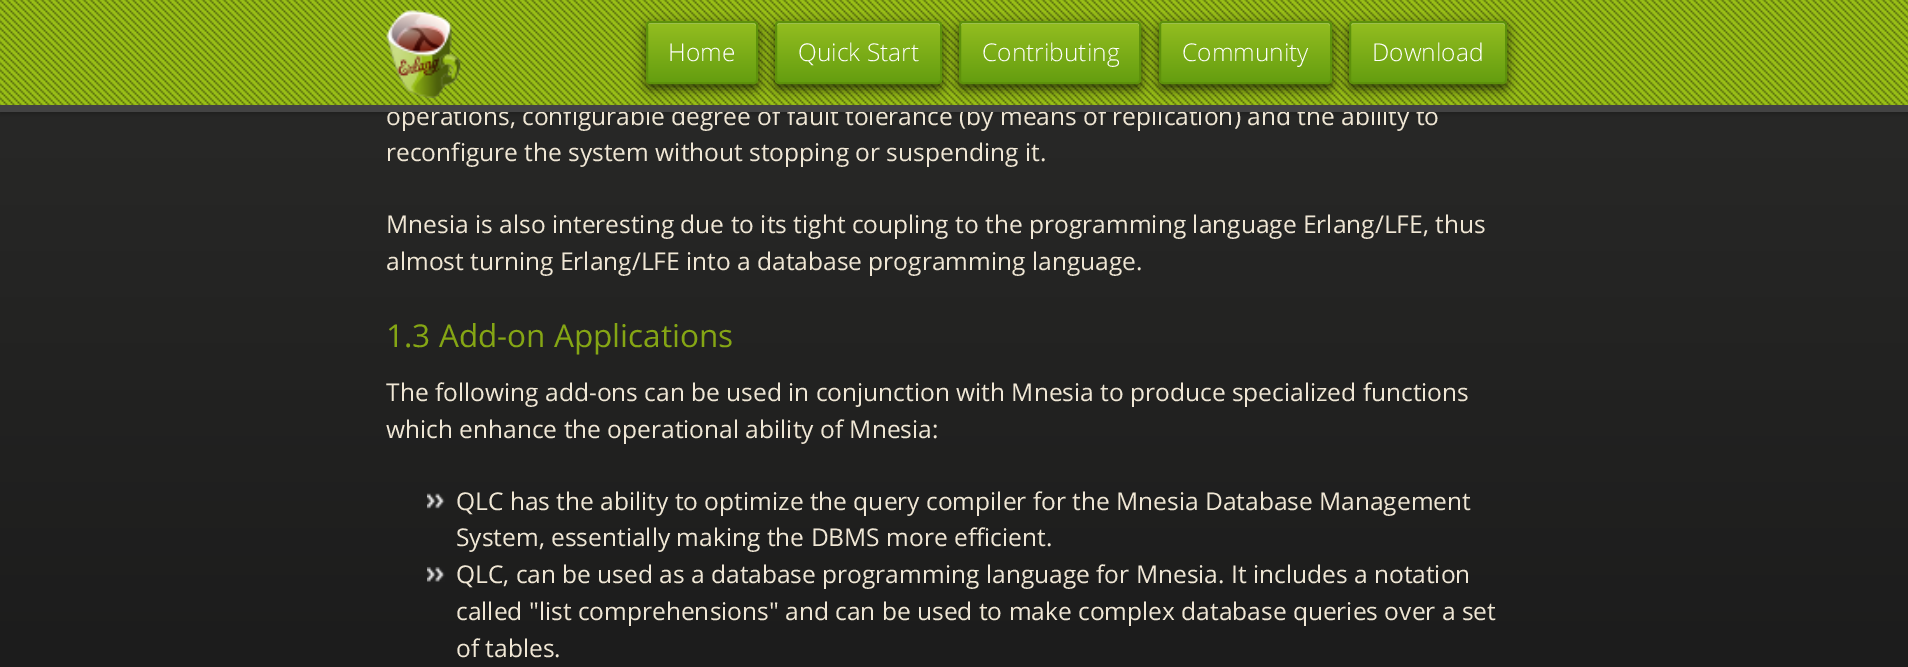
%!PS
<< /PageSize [1908 667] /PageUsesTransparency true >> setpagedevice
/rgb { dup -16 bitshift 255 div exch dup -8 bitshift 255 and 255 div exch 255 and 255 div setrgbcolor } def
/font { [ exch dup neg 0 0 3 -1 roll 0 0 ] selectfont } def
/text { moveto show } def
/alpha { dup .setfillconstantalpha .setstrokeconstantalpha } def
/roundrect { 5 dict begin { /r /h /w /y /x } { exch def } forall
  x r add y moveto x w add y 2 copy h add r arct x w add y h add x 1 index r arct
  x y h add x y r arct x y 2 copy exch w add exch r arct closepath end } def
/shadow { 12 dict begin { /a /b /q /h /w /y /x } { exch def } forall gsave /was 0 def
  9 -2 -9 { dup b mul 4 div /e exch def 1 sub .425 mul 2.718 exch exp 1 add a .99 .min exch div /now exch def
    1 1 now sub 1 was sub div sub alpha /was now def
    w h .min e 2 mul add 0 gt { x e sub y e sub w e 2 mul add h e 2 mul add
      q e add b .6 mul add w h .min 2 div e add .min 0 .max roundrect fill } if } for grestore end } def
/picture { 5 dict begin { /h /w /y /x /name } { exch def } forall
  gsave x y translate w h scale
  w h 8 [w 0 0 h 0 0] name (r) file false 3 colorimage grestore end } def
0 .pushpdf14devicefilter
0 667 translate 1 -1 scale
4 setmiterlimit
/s1 { /OpenSans-Regular 24.5 font 16#F0E7D5 rgb } def
/s2 { /OpenSans-Light 24.5 font 16#FFFFFF rgb } def
/s3 { /OpenSans-Regular 31.5 font 16#85A614 rgb } def
16#FFFFFF rgb
0 0 1908 667 rectfill
gsave 0 112 moveto 1908 112 lineto 1908 667 lineto 0 667 lineto closepath clip newpath
<< /ShadingType 2 /ColorSpace /DeviceRGB /Coords [955 0 955 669] /Extend [true true] /Function << /FunctionType 2 /Domain [0 1] /C0 [0.165 0.165 0.161] /C1 [0.11 0.11 0.11] /N 1 >> >> shfill grestore
16#000000 rgb
0 2 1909 112 0 2.5 0.25 shadow
(pic1.raw) 0 0 1908 105 picture
s1
(operations, configurable degree of fault tolerance \(by means of replication\) and the ability to) 386 125 text
16#434343 rgb
0 105 1908 7 rectfill
(pic2.raw) 386 10 75 88 picture
16#000000 rgb
1349 26 158 63 4 6 0.7 shadow
gsave
1349 21 158 63 4 roundrect clip newpath
gsave 1349 23 moveto 1507 23 lineto 1507 82 lineto 1349 82 lineto closepath clip newpath
<< /ShadingType 2 /ColorSpace /DeviceRGB /Coords [1428 23 1428 82] /Extend [true true] /Function << /FunctionType 2 /Domain [0 1] /C0 [0.576 0.741 0.125] /C1 [0.396 0.62 0.063] /N 1 >> >> shfill grestore
grestore
0.3 alpha
16#FFFFFF rgb
1353 24 moveto 1503 24 lineto 1504 24 1505 25 1505 26 curveto 1505 25 1505 24 1504 23 curveto 1378 23 lineto 1376 23 1351 17 1351 26 curveto 1351 25 1352 24 1353 24 curveto closepath fill
1 alpha
16#5D910B rgb
2 setlinewidth
1350 22 156 61 3 roundrect stroke
16#000000 rgb
1159 26 173 63 4 6 0.7 shadow
gsave
1159 21 173 63 4 roundrect clip newpath
gsave 1159 23 moveto 1332 23 lineto 1332 82 lineto 1159 82 lineto closepath clip newpath
<< /ShadingType 2 /ColorSpace /DeviceRGB /Coords [1245 23 1245 82] /Extend [true true] /Function << /FunctionType 2 /Domain [0 1] /C0 [0.576 0.741 0.125] /C1 [0.396 0.62 0.063] /N 1 >> >> shfill grestore
grestore
16#B3D163 rgb
1162 24 moveto 1328 24 lineto 1329 24 1330 25 1330 26 curveto 1330 25 1330 23 1328 23 curveto 1162 23 lineto 1160 23 1160 25 1160 26 curveto 1160 25 1161 24 1162 24 curveto closepath fill
16#5D910B rgb
1160 22 171 61 3 roundrect stroke
16#000000 rgb
959 26 182 63 4 6 0.7 shadow
gsave
959 21 182 63 4 roundrect clip newpath
gsave 959 23 moveto 1141 23 lineto 1141 82 lineto 959 82 lineto closepath clip newpath
<< /ShadingType 2 /ColorSpace /DeviceRGB /Coords [1050 23 1050 82] /Extend [true true] /Function << /FunctionType 2 /Domain [0 1] /C0 [0.576 0.741 0.125] /C1 [0.396 0.62 0.063] /N 1 >> >> shfill grestore
grestore
16#B3D163 rgb
962 24 moveto 1138 24 lineto 1139 26 lineto 1139 25 1139 23 1137 23 curveto 962 23 lineto 961 24 961 25 961 26 curveto closepath fill
16#5D910B rgb
960 22 180 61 3 roundrect stroke
16#000000 rgb
775 26 167 63 4 6 0.7 shadow
gsave
775 21 167 63 4 roundrect clip newpath
gsave 775 23 moveto 942 23 lineto 942 82 lineto 775 82 lineto closepath clip newpath
<< /ShadingType 2 /ColorSpace /DeviceRGB /Coords [858 23 858 82] /Extend [true true] /Function << /FunctionType 2 /Domain [0 1] /C0 [0.576 0.741 0.125] /C1 [0.396 0.62 0.063] /N 1 >> >> shfill grestore
grestore
16#B3D163 rgb
779 24 moveto 938 24 lineto 939 24 940 25 940 26 curveto 940 25 940 23 938 23 curveto 779 23 lineto 777 23 777 25 777 26 curveto 777 25 778 24 779 24 curveto closepath fill
16#5D910B rgb
776 22 165 61 3 roundrect stroke
16#000000 rgb
646 26 112 63 4 6 0.7 shadow
gsave
646 21 112 63 4 roundrect clip newpath
gsave 646 23 moveto 758 23 lineto 758 82 lineto 646 82 lineto closepath clip newpath
<< /ShadingType 2 /ColorSpace /DeviceRGB /Coords [702 23 702 82] /Extend [true true] /Function << /FunctionType 2 /Domain [0 1] /C0 [0.576 0.741 0.125] /C1 [0.396 0.62 0.063] /N 1 >> >> shfill grestore
grestore
16#B3D163 rgb
649 24 moveto 754 24 lineto 755 24 756 25 756 26 curveto 756 25 756 23 754 23 curveto 650 23 lineto 648 23 648 25 648 26 curveto 648 25 648 24 649 24 curveto closepath fill
16#5D910B rgb
647 22 110 61 3 roundrect stroke
s2
(Home) 668 61 text
(Quick Start) 798 61 text
(Contributing) 982 61 text
(Community) 1182 61 text
(Download) 1372 61 text
s1
(reconfigure the system without stopping or suspending it.) 386 161 text
(Mnesia is also interesting due to its tight coupling to the programming language Erlang/LFE, thus) 386 233 text
(almost turning Erlang/LFE into a database programming language.) 386 270 text
s3
(1.3 Add-on Applications) 386 347 text
s1
(The following add-ons can be used in conjunction with Mnesia to produce specialized functions) 386 401 text
(which enhance the operational ability of Mnesia:) 386 438 text
(pic3.raw) 427 493 18 16 picture
(QLC has the ability to optimize the query compiler for the Mnesia Database Management) 456 510 text
(System, essentially making the DBMS more efficient.) 456 546 text
(pic4.raw) 427 567 18 15 picture
(QLC, can be used as a database programming language for Mnesia. It includes a notation) 456 583 text
(called "list comprehensions" and can be used to make complex database queries over a set) 456 620 text
(of tables.) 456 657 text
.poppdf14devicefilter showpage
